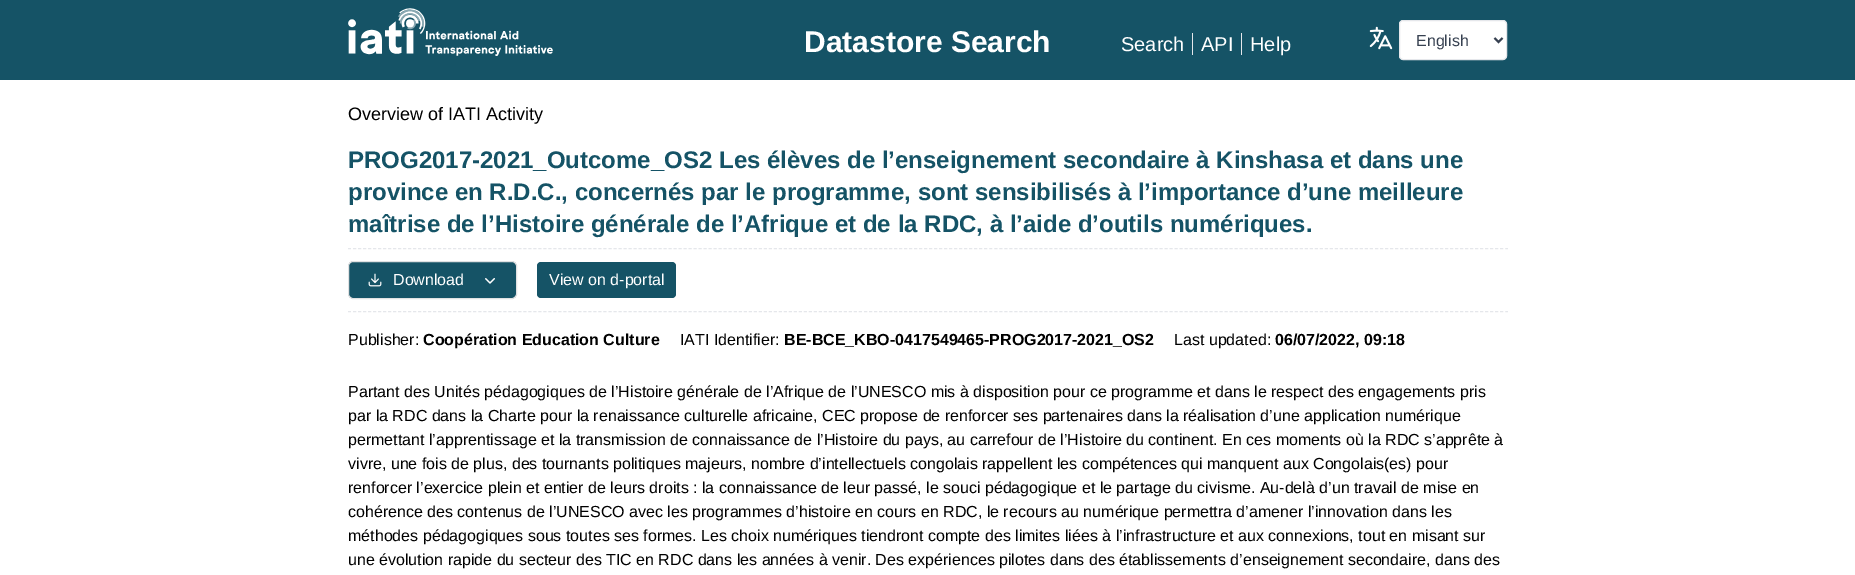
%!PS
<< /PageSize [1855 575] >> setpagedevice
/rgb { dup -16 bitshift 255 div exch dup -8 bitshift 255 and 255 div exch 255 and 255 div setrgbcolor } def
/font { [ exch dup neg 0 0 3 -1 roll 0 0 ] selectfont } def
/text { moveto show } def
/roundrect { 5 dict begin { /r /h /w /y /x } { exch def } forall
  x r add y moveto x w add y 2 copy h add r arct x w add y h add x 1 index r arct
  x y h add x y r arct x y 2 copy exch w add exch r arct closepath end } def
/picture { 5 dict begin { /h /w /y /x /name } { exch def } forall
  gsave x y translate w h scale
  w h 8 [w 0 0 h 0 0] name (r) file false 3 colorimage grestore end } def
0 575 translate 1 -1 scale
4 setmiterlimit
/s1 { /LiberationSans-Bold 30 font 16#FFFFFF rgb } def
/s2 { /LiberationSans-Regular 20 font 16#FFFFFF rgb } def
/s3 { /LiberationSans-Regular 16 font 16#374151 rgb } def
/s4 { /LiberationSans-Regular 18 font 16#000000 rgb } def
/s5 { /LiberationSans-Bold 24 font 16#155366 rgb } def
/s6 { /LiberationSans-Regular 16 font 16#FFFFFF rgb } def
/s7 { /LiberationSans-Regular 16 font 16#000000 rgb } def
/s8 { /LiberationSans-Bold 16 font 16#000000 rgb } def
16#FFFFFF rgb
0 0 1855 575 rectfill
16#155366 rgb
0 0 1855 80 rectfill
(pic1.raw) 348 8 205 48 picture
s1
(Datastore Search) 804 52 text
s2
(Search) 1121 51 text
(API) 1201 51 text
16#E5E7EB rgb
1192 33 1 22 rectfill
s2
(Help) 1250 51 text
16#E5E7EB rgb
1241 33 1 22 rectfill
(pic2.raw) 1369 26 24 24 picture
16#FFFFFF rgb
1399.5 20.5 107 39 3.5 roundrect gsave fill grestore
16#E5E7EB rgb
stroke
16#374151 rgb
2 setlinewidth
1494.5 38 moveto 1498.5 42 lineto 1502.5 38 lineto stroke
s3
(English) 1416 46 text
s4
(Overview of IATI Activity) 348 120 text
16#E5E7EB rgb
1 setlinewidth
[3 2.01] 0 setdash
348 248.5 moveto 1508 248.5 lineto stroke
s5
(PROG2017-2021_Outcome_OS2 Les élèves de l’enseignement secondaire à Kinshasa et dans une) 348 168 text
(province en R.D.C., concernés par le programme, sont sensibilisés à l’importance d’une meilleure) 348 200 text
(maîtrise de l’Histoire générale de l’Afrique et de la RDC, à l’aide d’outils numériques.) 348 232 text
16#E5E7EB rgb
348 311.5 moveto 1508 311.5 lineto stroke
16#155366 rgb
348.5 261.5 168 37 4.5 roundrect gsave fill grestore
16#E0E1E2 rgb
[] 0 setdash
stroke
(pic3.raw) 368 273 14 14 picture
s6
(Download) 393 285 text
(pic4.raw) 485 278 10 6 picture
16#155366 rgb
537 262 139 36 4 roundrect fill
s6
(View on d-portal) 549 285 text
s7
(Publisher:) 348 345 text
s8
(Coopération Education Culture) 423 345 text
s7
(IATI Identifier:) 680 345 text
s8
(BE-BCE_KBO-0417549465-PROG2017-2021_OS2) 784 345 text
s7
(Last updated:) 1174 345 text
s8
(06/07/2022, 09:18) 1275 345 text
s7
(Partant des Unités pédagogiques de l’Histoire générale de l’Afrique de l’UNESCO mis à disposition pour ce programme et dans le respect des engagements pris) 348 397 text
(par la RDC dans la Charte pour la renaissance culturelle africaine, CEC propose de renforcer ses partenaires dans la réalisation d’une application numérique) 348 421 text
(permettant l’apprentissage et la transmission de connaissance de l’Histoire du pays, au carrefour de l’Histoire du continent. En ces moments où la RDC s’apprête à) 348 445 text
(vivre, une fois de plus, des tournants politiques majeurs, nombre d’intellectuels congolais rappellent les compétences qui manquent aux Congolais\(es\) pour) 348 469 text
(renforcer l’exercice plein et entier de leurs droits : la connaissance de leur passé, le souci pédagogique et le partage du civisme. Au-delà d’un travail de mise en) 348 493 text
(cohérence des contenus de l’UNESCO avec les programmes d’histoire en cours en RDC, le recours au numérique permettra d’amener l’innovation dans les) 348 517 text
(méthodes pédagogiques sous toutes ses formes. Les choix numériques tiendront compte des limites liées à l’infrastructure et aux connexions, tout en misant sur) 348 541 text
(une évolution rapide du secteur des TIC en RDC dans les années à venir. Des expériences pilotes dans des établissements d’enseignement secondaire, dans des) 348 565 text
showpage
